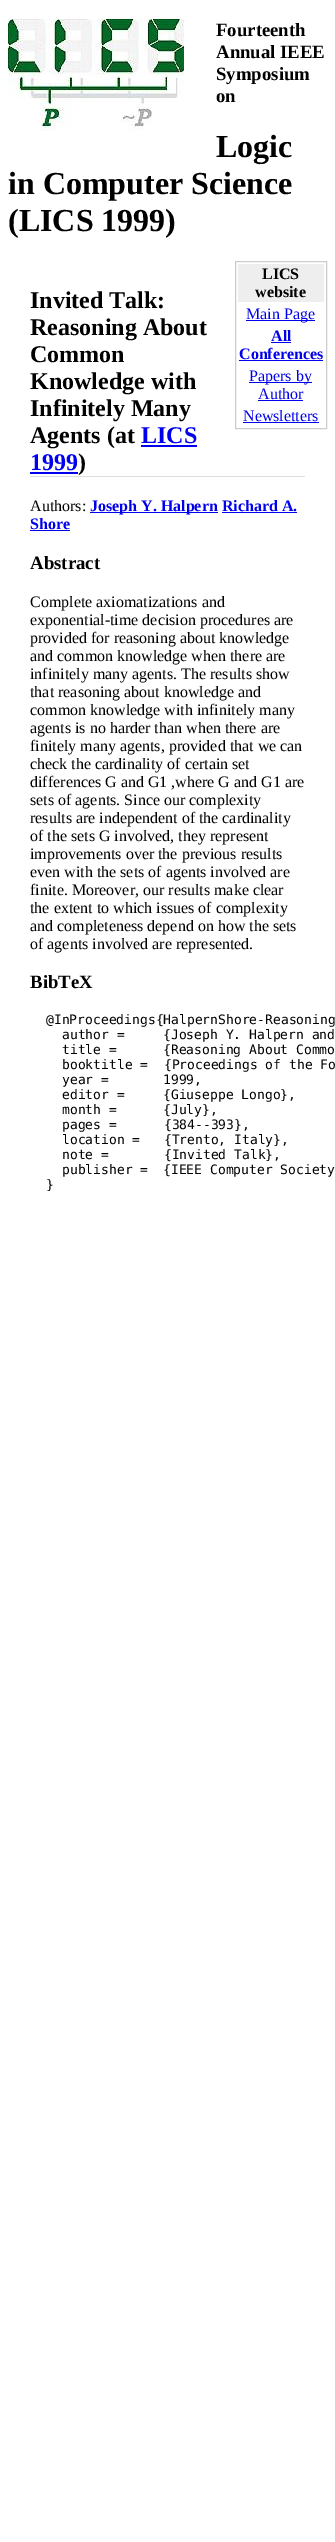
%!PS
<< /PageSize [335 2542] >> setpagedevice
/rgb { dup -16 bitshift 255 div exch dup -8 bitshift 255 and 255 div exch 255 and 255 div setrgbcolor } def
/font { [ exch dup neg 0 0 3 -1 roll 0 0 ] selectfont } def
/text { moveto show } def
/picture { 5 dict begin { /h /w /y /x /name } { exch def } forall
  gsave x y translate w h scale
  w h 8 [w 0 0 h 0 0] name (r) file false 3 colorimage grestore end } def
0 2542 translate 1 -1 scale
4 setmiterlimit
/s1 { /LiberationSerif-Bold 18.75 font 16#000000 rgb } def
/s2 { /LiberationSerif-Bold 32 font 16#000000 rgb } def
/s3 { /LiberationSerif-Bold 16 font 16#000000 rgb } def
/s4 { /LiberationSerif-Regular 16 font 16#0000EE rgb } def
/s5 { /LiberationSerif-Bold 16 font 16#0000EE rgb } def
/s6 { /LiberationSerif-Bold 24 font 16#000000 rgb } def
/s7 { /LiberationSerif-Bold 24 font 16#0000EE rgb } def
/s8 { /LiberationSerif-Regular 16 font 16#000000 rgb } def
/s9 { /DejaVuSansMono-Regular 13 font 16#000000 rgb } def
16#FFFFFF rgb
0 0 335 2542 rectfill
(pic1.raw) 8 19 176 112 picture
s1
(Fourteenth) 216 36 text
(Annual IEEE) 216 58 text
(Symposium) 216 80 text
(on) 216 102 text
s2
(Logic) 216 157 text
(in Computer Science) 8 194 text
(\(LICS 1999\)) 8 231 text
16#CCCCCC rgb
235.5 261.5 91 167 rectstroke
16#EEEEEE rgb
238 264 86 38 rectfill
s3
(LICS) 262 279 text
(website) 255 297 text
16#0000EE rgb
246 320 69 1 rectfill
s4
(Main Page) 246 319 text
s5
(All) 271 341 text
271 342 20 1 rectfill
(Conferences) 239 359 text
239 360 84 1 rectfill
249 382 63 1 rectfill
s4
(Papers by) 249 381 text
(Author) 258 399 text
258 400 45 1 rectfill
(Newsletters) 243 421 text
243 422 76 1 rectfill
16#DDDDDD rgb
30 476 275 1 rectfill
s6
(Invited Talk:) 30 308 text
(Reasoning About) 30 335 text
(Common) 30 362 text
(Knowledge with) 30 389 text
(Infinitely Many) 30 416 text
(Agents \(at) 30 443 text
s7
(LICS) 141 443 text
141 445 56 2 rectfill
(1999) 30 470 text
30 472 48 2 rectfill
s6
(\)) 78 470 text
s8
(Authors:) 30 511 text
16#0000EE rgb
90 512 128 1 rectfill
s5
(Joseph Y. Halpern Richard A.) 90 511 text
222 512 75 1 rectfill
(Shore) 30 529 text
30 530 40 1 rectfill
s1
(Abstract) 30 569 text
s8
(Complete axiomatizations and) 30 607 text
(exponential-time decision procedures are) 30 625 text
(provided for reasoning about knowledge) 30 643 text
(and common knowledge when there are) 30 661 text
(infinitely many agents. The results show) 30 679 text
(that reasoning about knowledge and) 30 697 text
(common knowledge with infinitely many) 30 715 text
(agents is no harder than when there are) 30 733 text
(finitely many agents, provided that we can) 30 751 text
(check the cardinality of certain set) 30 769 text
(differences G and G1 ,where G and G1 are) 30 787 text
(sets of agents. Since our complexity) 30 805 text
(results are independent of the cardinality) 30 823 text
(of the sets G involved, they represent) 30 841 text
(improvements over the previous results) 30 859 text
(even with the sets of agents involved are) 30 877 text
(finite. Moreover, our results make clear) 30 895 text
(the extent to which issues of complexity) 30 913 text
(and completeness depend on how the sets) 30 931 text
(of agents involved are represented.) 30 949 text
s1
(BibTeX) 30 988 text
s9
(@InProceedings{HalpernShore-Reasoning) 46 1024 text
(author =) 62 1039 text
({Joseph Y. Halpern and) 163 1039 text
(title =) 62 1054 text
({Reasoning About Commo) 163 1054 text
(booktitle =  {Proceedings of the Fo) 62 1069 text
(year =) 62 1084 text
(1999,) 163 1084 text
(editor =) 62 1099 text
({Giuseppe Longo},) 163 1099 text
(month =) 62 1114 text
({July},) 163 1114 text
(pages =      {384--393},) 62 1129 text
(location =   {Trento, Italy},) 62 1144 text
(note =       {Invited Talk},) 62 1159 text
(publisher =) 62 1174 text
({IEEE Computer Society) 163 1174 text
(}) 46 1189 text
showpage
